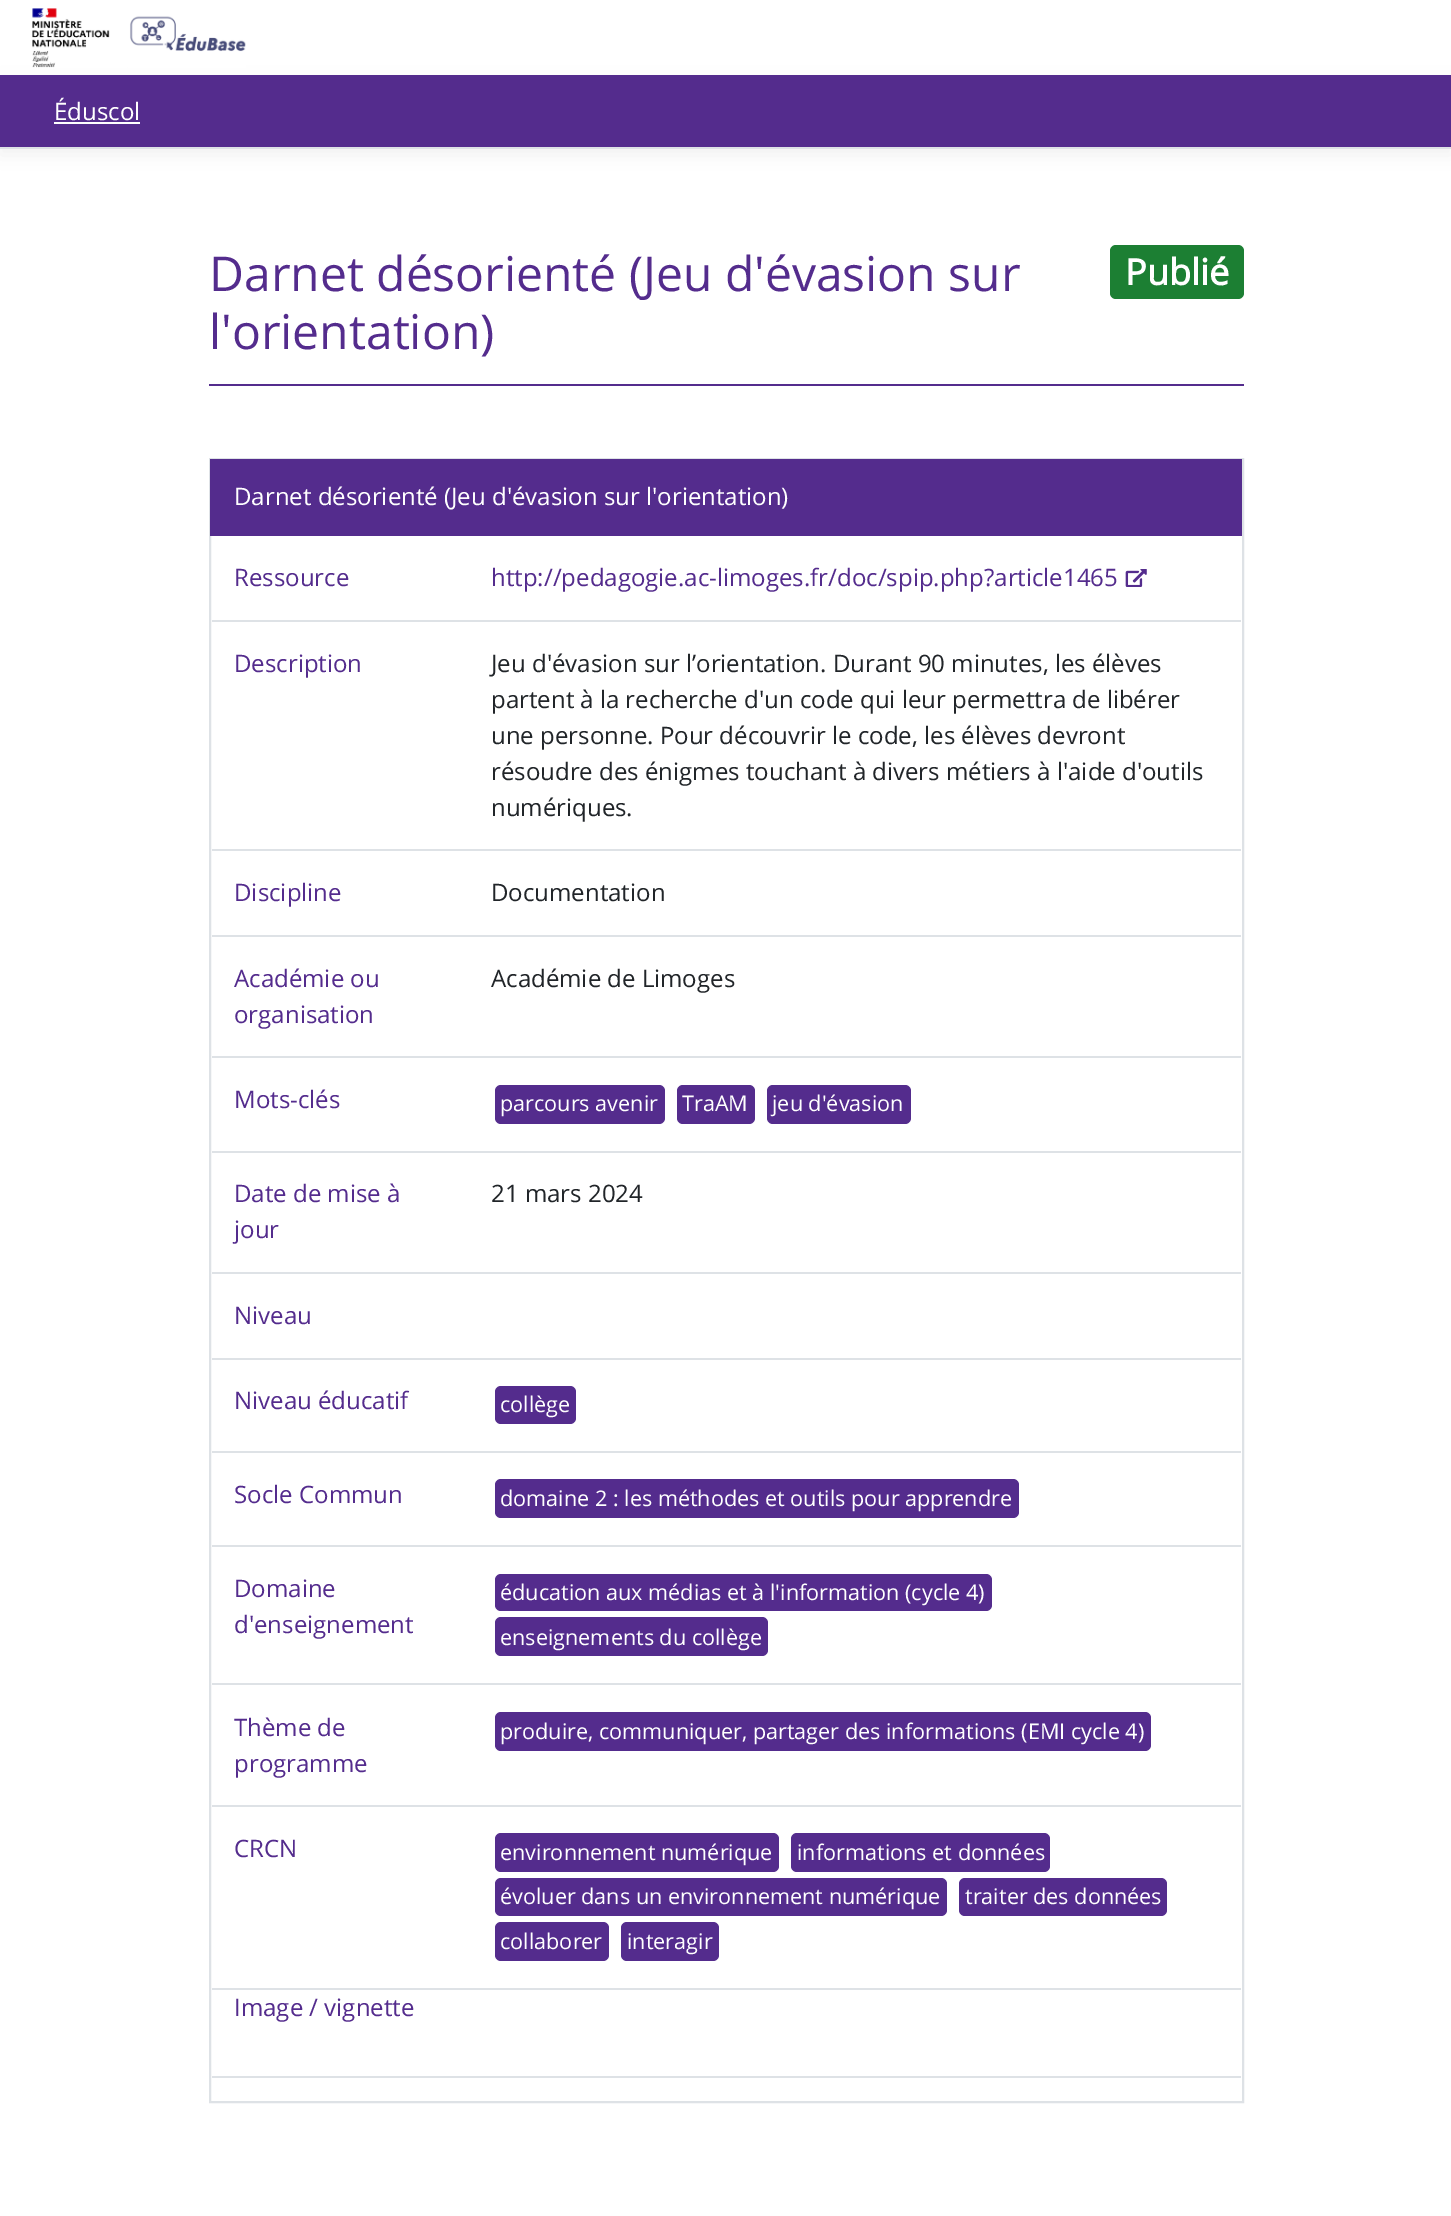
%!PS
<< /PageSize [1451 2216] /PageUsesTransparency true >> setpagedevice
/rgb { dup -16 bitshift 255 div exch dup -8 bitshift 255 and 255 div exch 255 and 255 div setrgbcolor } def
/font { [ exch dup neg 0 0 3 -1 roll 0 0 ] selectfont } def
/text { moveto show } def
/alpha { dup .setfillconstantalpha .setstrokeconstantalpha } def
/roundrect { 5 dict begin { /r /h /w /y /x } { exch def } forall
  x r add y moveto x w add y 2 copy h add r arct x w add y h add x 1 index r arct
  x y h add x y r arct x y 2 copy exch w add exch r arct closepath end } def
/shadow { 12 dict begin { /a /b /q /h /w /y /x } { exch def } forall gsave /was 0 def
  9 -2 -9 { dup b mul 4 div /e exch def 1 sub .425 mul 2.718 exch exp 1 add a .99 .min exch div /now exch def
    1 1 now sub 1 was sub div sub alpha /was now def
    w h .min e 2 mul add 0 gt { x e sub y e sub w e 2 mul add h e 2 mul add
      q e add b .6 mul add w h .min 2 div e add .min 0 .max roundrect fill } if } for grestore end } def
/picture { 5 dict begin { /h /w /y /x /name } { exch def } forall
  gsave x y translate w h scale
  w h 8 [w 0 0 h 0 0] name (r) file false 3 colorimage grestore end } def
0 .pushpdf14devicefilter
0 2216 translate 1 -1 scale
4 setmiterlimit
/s1 { /OpenSans-Regular 24 font 16#FFFFFF rgb } def
/s2 { /OpenSans-Regular 48 font 16#542C8D rgb } def
/s3 { /OpenSans-Bold 36 font 16#FFFFFF rgb } def
/s4 { /OpenSans-Regular 24 font 16#542C8D rgb } def
/s5 { /OpenSans-Regular 24 font 16#212529 rgb } def
/s6 { /OpenSans-Regular 21.6 font 16#FFFFFF rgb } def
16#FFFFFF rgb
0 0 1451 2216 rectfill
16#000000 rgb
0 81 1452 74 0 9 0.05 shadow
(pic1.raw) 32 8 214 60 picture
16#542C8D rgb
0 75 1451 72 rectfill
16#DEE2E6 rgb
0 147 1451 2 rectfill
s1
(Éduscol) 54 120 text
54 122 86 2 rectfill
16#542C8D rgb
209 384 1035 2 rectfill
s2
(Darnet désorienté \(Jeu d'évasion sur) 209 291 text
16#1C7F33 rgb
1110 245 134 54 6 roundrect fill
s3
(Publié) 1125 285 text
s2
(l'orientation\)) 209 349 text
16#DEE2E6 rgb
2 setlinewidth
210 459 1033 1643 rectstroke
16#542C8D rgb
210 459 1032 77 rectfill
s1
(Darnet désorienté \(Jeu d'évasion sur l'orientation\)) 234 505 text
16#DEE2E6 rgb
212 620 1029 2 rectfill
s4
(Ressource) 234 586 text
(http://pedagogie.ac-limoges.fr/doc/spip.php?article1465) 491 586 text
(pic2.raw) 1125 569 22 18 picture
16#DEE2E6 rgb
212 849 1029 2 rectfill
s4
(Description) 234 672 text
s5
(Jeu d'évasion sur l’orientation. Durant 90 minutes, les élèves) 491 672 text
(partent à la recherche d'un code qui leur permettra de libérer) 491 708 text
(une personne. Pour découvrir le code, les élèves devront) 491 744 text
(résoudre des énigmes touchant à divers métiers à l'aide d'outils) 491 780 text
(numériques.) 491 816 text
16#DEE2E6 rgb
212 935 1029 2 rectfill
s4
(Discipline) 234 901 text
s5
(Documentation) 491 901 text
16#DEE2E6 rgb
212 1056 1029 2 rectfill
s4
(Académie ou) 234 987 text
(organisation) 234 1023 text
s5
(Académie de Limoges) 491 987 text
16#DEE2E6 rgb
212 1151 1029 2 rectfill
s4
(Mots-clés) 234 1108 text
495 1085 170 39 6 roundrect fill
s6
(parcours avenir) 500 1111 text
16#542C8D rgb
677 1085 78 39 6 roundrect fill
s6
(TraAM) 682 1111 text
16#542C8D rgb
767 1085 144 39 6 roundrect fill
s6
(jeu d'évasion) 772 1111 text
16#DEE2E6 rgb
212 1272 1029 2 rectfill
s4
(Date de mise à) 234 1202 text
(jour) 234 1238 text
s5
(21 mars 2024) 491 1202 text
16#DEE2E6 rgb
212 1358 1029 2 rectfill
s4
(Niveau) 234 1324 text
16#DEE2E6 rgb
212 1451 1029 2 rectfill
s4
(Niveau éducatif) 234 1409 text
495 1386 81 38 6 roundrect fill
s6
(collège) 500 1412 text
16#DEE2E6 rgb
212 1545 1029 2 rectfill
s4
(Socle Commun) 234 1503 text
495 1479 524 39 6 roundrect fill
s6
(domaine 2 : les méthodes et outils pour apprendre) 500 1506 text
16#DEE2E6 rgb
212 1683 1029 2 rectfill
s4
(Domaine) 234 1597 text
(d'enseignement) 234 1633 text
495 1574 497 37 6 roundrect fill
s6
(éducation aux médias et à l'information \(cycle 4\)) 500 1600 text
16#542C8D rgb
495 1617 273 39 6 roundrect fill
s6
(enseignements du collège) 500 1645 text
16#DEE2E6 rgb
212 1805 1029 2 rectfill
s4
(Thème de) 234 1736 text
(programme) 234 1772 text
495 1712 656 39 6 roundrect fill
s6
(produire, communiquer, partager des informations \(EMI cycle 4\)) 500 1739 text
16#DEE2E6 rgb
212 1988 1029 2 rectfill
s4
(CRCN) 234 1857 text
495 1833 284 39 6 roundrect fill
s6
(environnement numérique) 500 1860 text
16#542C8D rgb
791 1833 259 39 6 roundrect fill
s6
(informations et données) 797 1860 text
16#542C8D rgb
495 1878 452 38 6 roundrect fill
s6
(évoluer dans un environnement numérique) 500 1904 text
16#542C8D rgb
959 1878 208 38 6 roundrect fill
s6
(traiter des données) 965 1904 text
16#542C8D rgb
495 1922 114 39 6 roundrect fill
s6
(collaborer) 500 1949 text
16#542C8D rgb
621 1922 98 39 6 roundrect fill
s6
(interagir) 627 1949 text
16#DEE2E6 rgb
212 2076 1029 2 rectfill
s4
(Image / vignette) 234 2016 text
.poppdf14devicefilter showpage
